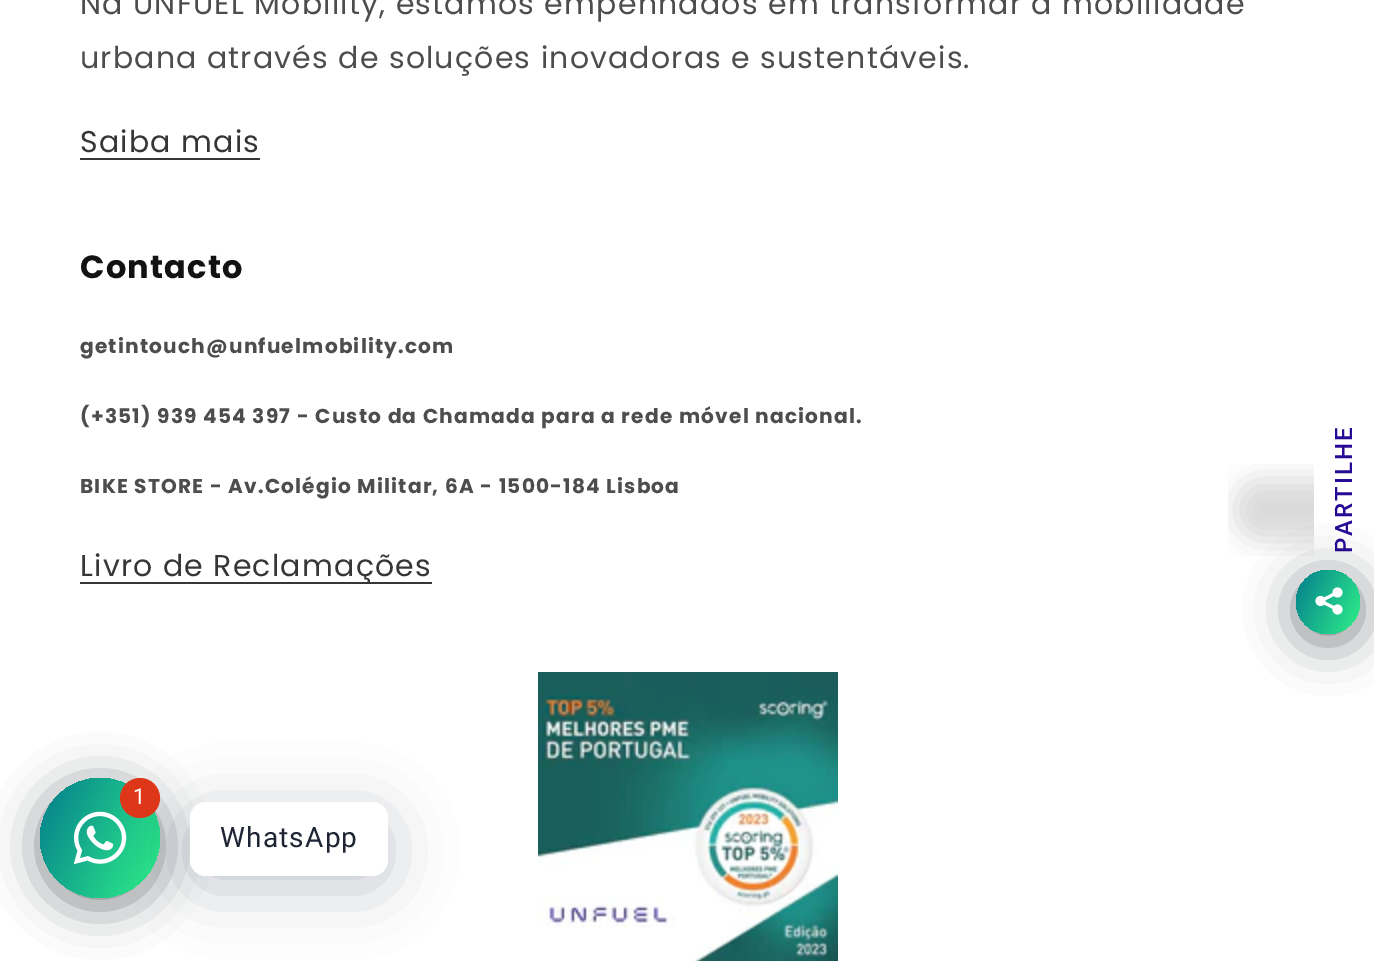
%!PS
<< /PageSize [1374 961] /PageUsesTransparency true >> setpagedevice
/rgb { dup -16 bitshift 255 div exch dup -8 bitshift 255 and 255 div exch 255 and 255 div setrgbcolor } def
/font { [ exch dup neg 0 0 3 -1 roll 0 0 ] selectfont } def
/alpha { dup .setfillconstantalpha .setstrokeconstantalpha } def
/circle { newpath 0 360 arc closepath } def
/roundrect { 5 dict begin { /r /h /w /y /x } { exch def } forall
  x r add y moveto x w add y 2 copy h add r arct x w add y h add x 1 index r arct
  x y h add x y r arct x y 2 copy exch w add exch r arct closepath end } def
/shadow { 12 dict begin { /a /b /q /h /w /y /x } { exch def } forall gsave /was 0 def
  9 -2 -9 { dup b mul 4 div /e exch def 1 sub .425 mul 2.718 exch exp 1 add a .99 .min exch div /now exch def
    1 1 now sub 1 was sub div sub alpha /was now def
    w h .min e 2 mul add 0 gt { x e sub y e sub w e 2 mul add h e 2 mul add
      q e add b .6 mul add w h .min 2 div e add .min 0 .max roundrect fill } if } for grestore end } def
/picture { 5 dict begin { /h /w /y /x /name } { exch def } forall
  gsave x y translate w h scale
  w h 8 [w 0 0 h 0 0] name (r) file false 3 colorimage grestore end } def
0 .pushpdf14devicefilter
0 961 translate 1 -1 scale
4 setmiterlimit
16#FFFFFF rgb
0 0 1374 961 rectfill
/Poppins-Regular 30 font
16#4D4D4D rgb
80 14 moveto 1.2 0 (Na UNFUEL Mobility, estamos empenhados em transformar a mobilidade) ashow
80 68 moveto 1.2 0 (urbana através de soluções inovadoras e sustentáveis.) ashow
16#363636 rgb
80 152 moveto 1.2 0 (Saiba mais) ashow
80 158 180 2 rectfill
/Poppins-Bold 32 font
16#121212 rgb
80 278 moveto 1.2 0 (Contacto) ashow
/Poppins-Bold 20.1 font
16#4D4D4D rgb
80 353 moveto 1.2 0 (getintouch@unfuelmobility.com) ashow
80 423 moveto 1.2 0 (\(+351\) 939 454 397 - Custo da Chamada para a rede móvel nacional.) ashow
80 493 moveto 1.2 0 (BIKE STORE - Av.Colégio Militar, 6A - 1500-184 Lisboa) ashow
16#363636 rgb
80 582 352 2 rectfill
/Poppins-Regular 30 font
80 576 moveto 1.2 0 (Livro de Reclamações) ashow
(pic1.raw) 538 672 300 289 picture
gsave
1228 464 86 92 rectclip
16#000000 rgb
1236 480 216 60 56 14 0.15 shadow
grestore
/Roboto-Medium 24 font
16#260A96 rgb
gsave 1352 553 translate -90 rotate 0 0 moveto 2 0 (PARTILHE) ashow grestore
16#020610 rgb
1296 578 64 64 32 24 0.5 shadow
gsave 1328 602 32 circle clip newpath
<< /ShadingType 2 /ColorSpace /DeviceRGB /Coords [1289 584 1367 620] /Extend [true true] /Function << /FunctionType 2 /Domain [0 1] /C0 [0.016 0.486 0.553] /C1 [0.184 0.949 0.537] /N 1 >> >> shfill grestore
(pic2.raw) 1315 587 28 28 picture
40 786 120 120 60 24 0.5 shadow
gsave 100 838 60 circle clip newpath
<< /ShadingType 2 /ColorSpace /DeviceRGB /Coords [28 804 172 872] /Extend [true true] /Function << /FunctionType 2 /Domain [0 1] /C0 [0.016 0.486 0.553] /C1 [0.184 0.949 0.537] /N 1 >> >> shfill grestore
16#00122E rgb
190 814 198 74 16 32 0.24 shadow
(pic3.raw) 73 811 54 54 picture
16#DE3618 rgb
140 798 20 circle fill
/Roboto-Regular 22 font
16#FFFFFF rgb
133 804 moveto 1.2 0 (1) ashow
190 802 198 74 16 roundrect fill
/Roboto-Regular 28 font
16#1E2433 rgb
220 847 moveto 1.2 0 (WhatsApp) ashow
.poppdf14devicefilter showpage
